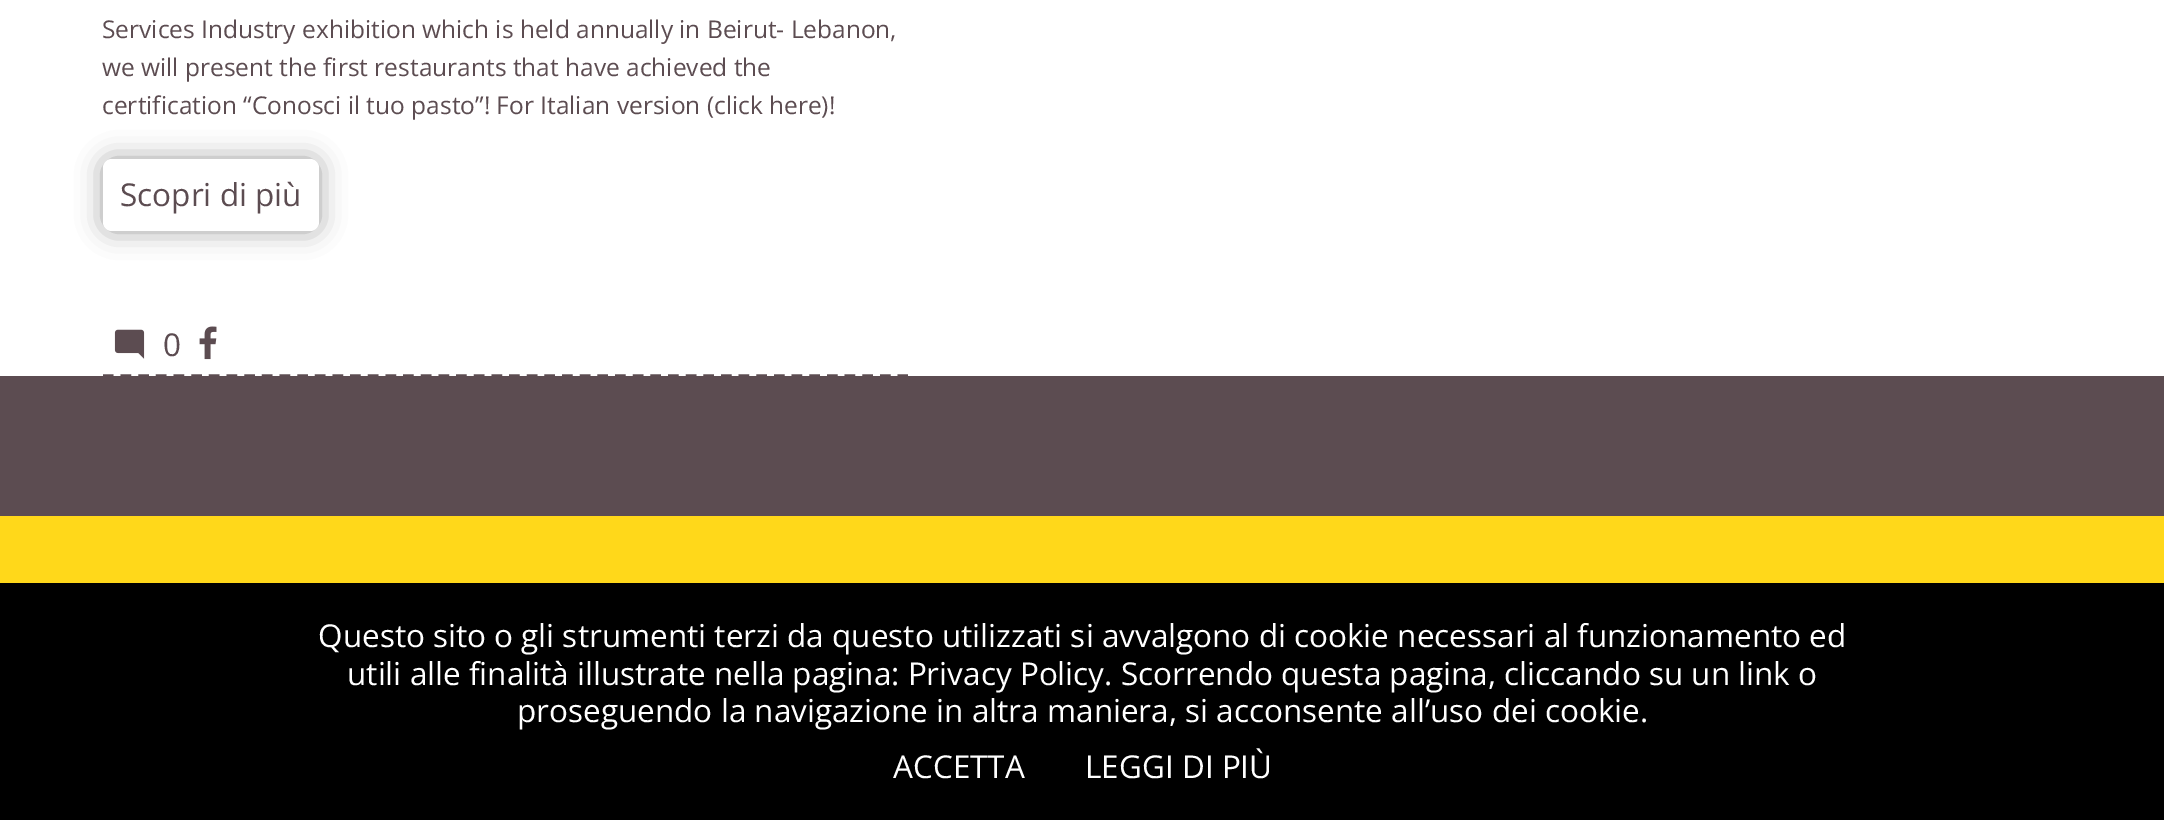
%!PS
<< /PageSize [2164 820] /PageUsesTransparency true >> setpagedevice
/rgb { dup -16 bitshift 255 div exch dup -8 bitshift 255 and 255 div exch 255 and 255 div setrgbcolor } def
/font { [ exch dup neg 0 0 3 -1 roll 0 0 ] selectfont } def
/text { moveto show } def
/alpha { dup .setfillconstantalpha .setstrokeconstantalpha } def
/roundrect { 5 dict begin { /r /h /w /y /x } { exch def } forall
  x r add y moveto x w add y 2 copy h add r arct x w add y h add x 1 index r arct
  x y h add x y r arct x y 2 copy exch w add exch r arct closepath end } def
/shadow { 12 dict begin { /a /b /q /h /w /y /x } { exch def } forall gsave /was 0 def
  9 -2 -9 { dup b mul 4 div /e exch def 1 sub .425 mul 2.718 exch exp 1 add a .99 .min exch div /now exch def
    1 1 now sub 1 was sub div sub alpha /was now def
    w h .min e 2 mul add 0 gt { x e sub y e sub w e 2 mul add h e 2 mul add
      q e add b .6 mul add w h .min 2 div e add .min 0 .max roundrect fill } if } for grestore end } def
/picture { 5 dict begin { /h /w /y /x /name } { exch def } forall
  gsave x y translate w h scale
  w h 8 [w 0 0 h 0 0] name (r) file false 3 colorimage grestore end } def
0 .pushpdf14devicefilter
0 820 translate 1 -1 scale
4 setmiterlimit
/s1 { /OpenSans-Regular 24.5 font 16#5C4C51 rgb } def
/s2 { /OpenSans-Regular 31.5 font 16#5C4C51 rgb } def
/s3 { /OpenSans-Regular 31.5 font 16#FFFFFF rgb } def
16#FFD81A rgb
0 0 2164 820 rectfill
16#FFFFFF rgb
0 0 2164 376 rectfill
s1
(Services Industry exhibition which is held annually in Beirut- Lebanon,) 102 38 text
(we will present the first restaurants that have achieved the) 102 76 text
(certification “Conosci il tuo pasto”! For Italian version \(click here\)!) 102 114 text
16#9C9C9C rgb
103 159 216 72 9 13 1 shadow
16#FFFFFF rgb
103 159 216 72 9 roundrect fill
s2
(Scopri di più) 120 206 text
0 376 2164 140 rectfill
3.5 setlinewidth
[10.5 7.16] 0 setdash
103 376 moveto 908 376 lineto stroke
(pic1.raw) 114 329 31 30 picture
(0) 163 356 text
(pic2.raw) 199 326 18 34 picture
16#000000 rgb
0 583 2164 237 rectfill
s3
(Questo sito o gli strumenti terzi da questo utilizzati si avvalgono di cookie necessari al funzionamento ed) 318 647 text
(utili alle finalità illustrate nella pagina: Privacy Policy. Scorrendo questa pagina, cliccando su un link o) 347 685 text
(proseguendo la navigazione in altra maniera, si acconsente all’uso dei cookie.) 517 722 text
(ACCETTA) 893 778 text
(LEGGI DI PIÙ) 1085 778 text
.poppdf14devicefilter showpage
